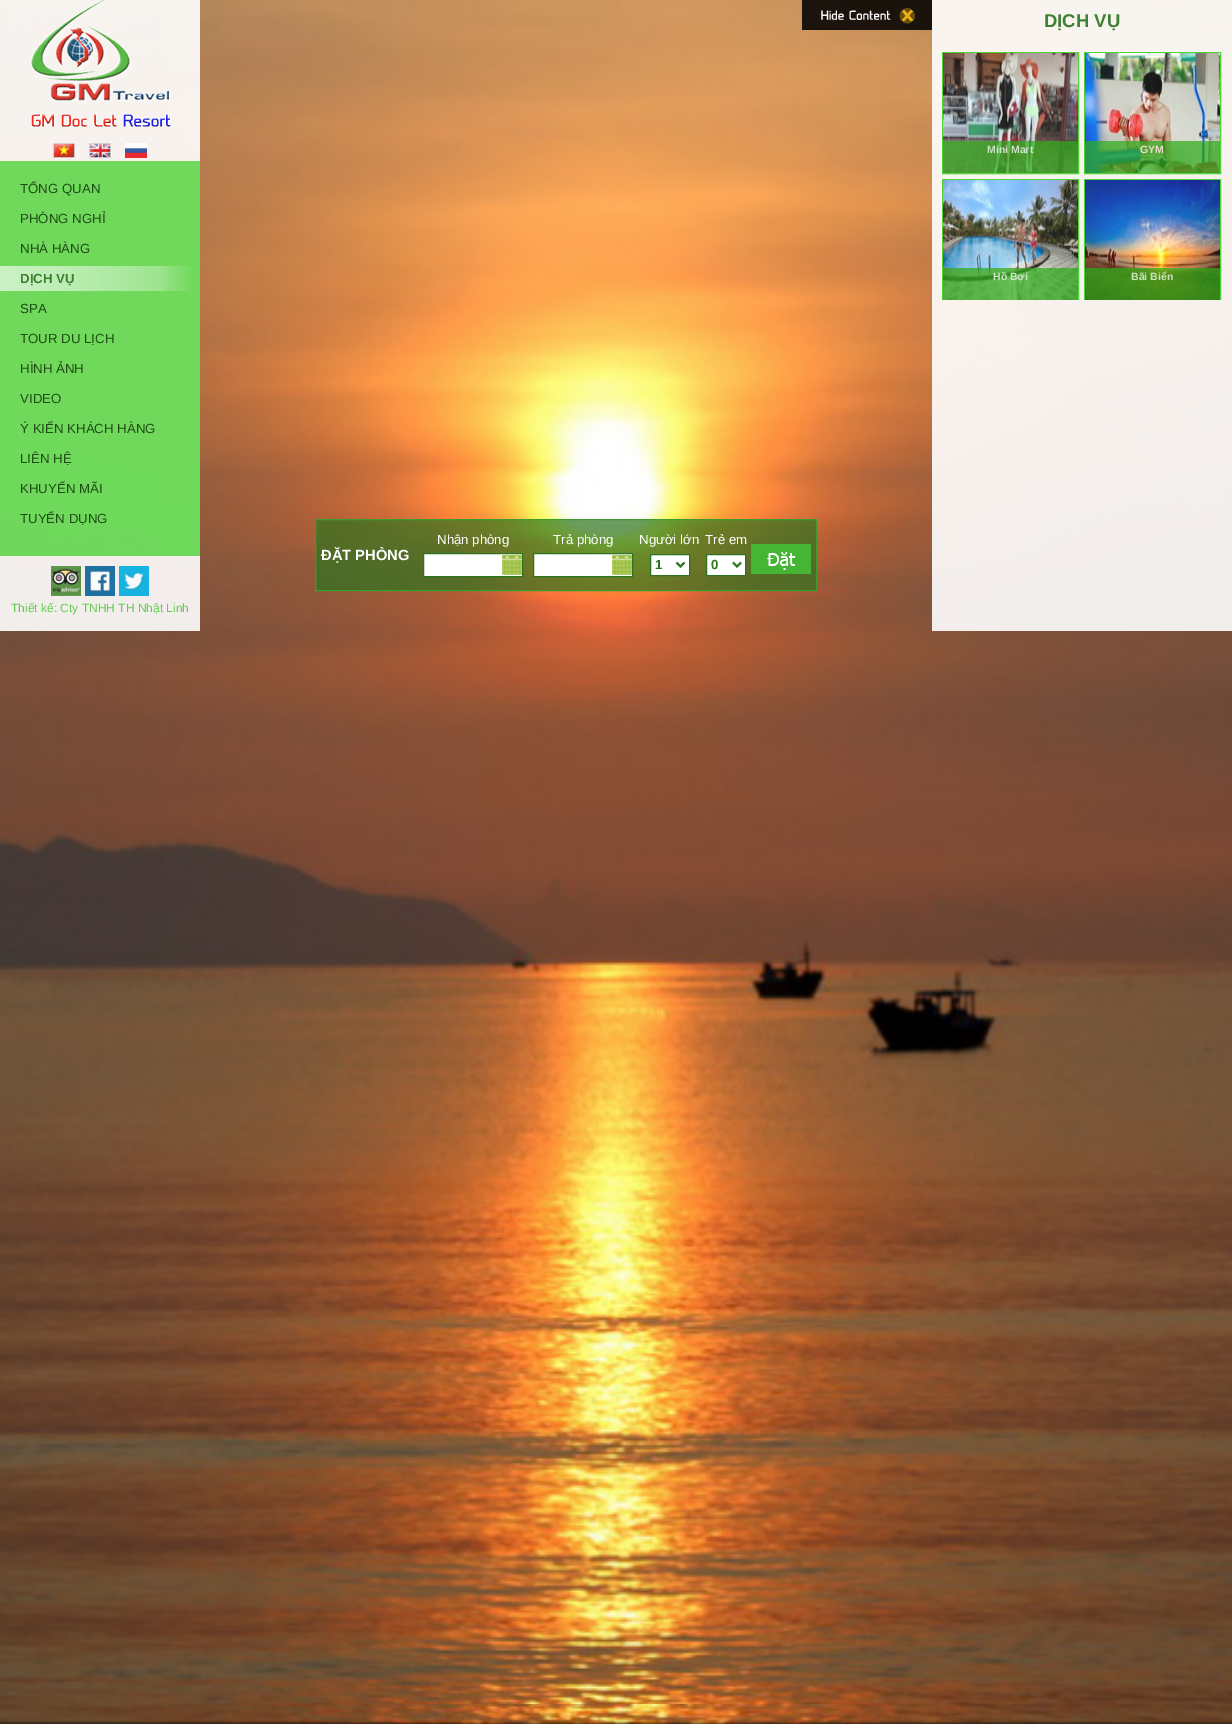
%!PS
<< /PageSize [1232 1724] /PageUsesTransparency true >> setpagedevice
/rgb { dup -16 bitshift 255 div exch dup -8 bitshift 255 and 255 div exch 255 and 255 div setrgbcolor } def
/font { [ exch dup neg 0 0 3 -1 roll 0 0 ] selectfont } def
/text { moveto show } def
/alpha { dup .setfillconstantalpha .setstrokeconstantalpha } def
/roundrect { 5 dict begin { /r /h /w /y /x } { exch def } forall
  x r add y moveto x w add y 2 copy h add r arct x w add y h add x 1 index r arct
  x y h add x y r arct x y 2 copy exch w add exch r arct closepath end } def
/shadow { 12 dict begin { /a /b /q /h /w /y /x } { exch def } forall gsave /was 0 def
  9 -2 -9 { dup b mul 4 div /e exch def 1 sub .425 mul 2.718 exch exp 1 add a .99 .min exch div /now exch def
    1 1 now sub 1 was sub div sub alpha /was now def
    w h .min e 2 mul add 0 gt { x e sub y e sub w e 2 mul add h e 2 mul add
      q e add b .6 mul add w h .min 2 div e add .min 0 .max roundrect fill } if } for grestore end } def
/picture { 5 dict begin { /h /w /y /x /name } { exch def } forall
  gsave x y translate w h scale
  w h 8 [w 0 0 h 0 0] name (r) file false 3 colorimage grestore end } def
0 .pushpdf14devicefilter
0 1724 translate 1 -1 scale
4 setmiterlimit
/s1 { /LiberationSans-Bold 18.5 font 16#408135 rgb } def
/s2 { /LiberationSans-Bold 10.5 font 16#CDE4C6 rgb } def
/s3 { /LiberationSans-Bold 10.5 font 16#ECDCCF rgb } def
/s4 { /LiberationSans-Bold 10.5 font 16#CDE0BF rgb } def
/s5 { /LiberationSans-Regular 13.25 font 16#1F4C15 rgb } def
/s6 { /LiberationSans-Bold 13.25 font 16#3B802F rgb } def
/s7 { /LiberationSans-Regular 12 font 16#60CE4D rgb } def
/s8 { /LiberationSans-Regular 13.25 font 16#FFFFFF rgb } def
/s9 { /LiberationSans-Bold 14.75 font 16#FFFFFF rgb } def
/s10 { /LiberationSans-Bold 13.25 font 16#2C7420 rgb } def
16#FFFFFF rgb
0 0 1232 1724 rectfill
(pic2.raw) 0 1721 1232 3 picture
(pic1.raw) 0 0 1232 1724 picture
(pic3.raw) 802 0 130 30 picture
0.9 alpha
932 0 300 631 rectfill
1 alpha
s1
(DỊCH VỤ) 1044 27 text
16#4FD438 rgb
942.5 52.5 136 121 rectstroke
(pic4.raw) 943 53 135 120 picture
0.72 alpha
16#2EAC1A rgb
943 141 135 32 rectfill
1 alpha
s2
(Mini Mart) 987 153 text
16#4FD438 rgb
1084.5 52.5 136 121 rectstroke
(pic5.raw) 1085 53 135 120 picture
0.72 alpha
16#2EAC1A rgb
1085 141 135 32 rectfill
1 alpha
s3
(GYM) 1140 153 text
gsave
932 0 300 300 rectclip
0.9 alpha
16#3CD124 rgb
942.5 179.5 136 121 rectstroke
grestore
(pic6.raw) 943 180 135 120 picture
0.72 alpha
16#2EAC1A rgb
943 268 135 32 rectfill
1 alpha
s2
(Hồ Bơi) 993 280 text
gsave
932 0 300 300 rectclip
0.9 alpha
16#3CD124 rgb
1084.5 179.5 136 121 rectstroke
grestore
(pic7.raw) 1085 180 135 120 picture
0.72 alpha
16#2EAC1A rgb
1085 268 135 32 rectfill
1 alpha
s4
(Bãi Biển) 1131 280 text
0.9 alpha
16#FFFFFF rgb
0 0 200 631 rectfill
1 alpha
(pic8.raw) 30 0 141 128 picture
(pic9.raw) 53 143 22 15 picture
(pic10.raw) 89 143 22 15 picture
(pic11.raw) 125 143 22 15 picture
0.72 alpha
16#3CD024 rgb
0 161 200 395 rectfill
1 alpha
s5
(TỔNG QUAN) 20 193 text
(PHÒNG NGHỈ) 20 223 text
(NHÀ HÀNG) 20 253 text
(pic12.raw) 0 266 191 25 picture
s6
(DỊCH VỤ) 20 283 text
s5
(SPA) 20 313 text
(TOUR DU LỊCH) 20 343 text
(HÌNH ẢNH) 20 373 text
(VIDEO) 20 403 text
(Ý KIẾN KHÁCH HÀNG) 20 433 text
(LIÊN HỆ) 20 463 text
(KHUYẾN MÃI) 20 493 text
(TUYỂN DỤNG) 20 523 text
(pic13.raw) 51 566 30 30 picture
(pic14.raw) 85 566 30 30 picture
(pic15.raw) 119 566 30 30 picture
s7
(Thiết kế: Cty TNHH TH Nhật Linh) 11 612 text
0.7 alpha
16#2C731F rgb
315.5 519.5 moveto 816.5 519.5 lineto 816.5 590.5 lineto 315.5 590.5 lineto closepath fill
1 alpha
16#3D9C2D rgb
315.5 519.5 moveto 816.5 519.5 lineto 816.5 590.5 lineto 315.5 590.5 lineto closepath stroke
s8
(Nhận phòng) 437 544 text
(Trả phòng) 553 544 text
(Người lớn) 639 544 text
(Trẻ em) 705 544 text
s9
(ĐẶT PHÒNG) 321 560 text
(pic16.raw) 751 544 60 30 picture
424 554 98 22 rectfill
(pic17.raw) 502 555 20 20 picture
16#2C7420 rgb
423.5 553.5 99 23 rectstroke
16#FFFFFF rgb
534 554 98 22 rectfill
(pic17.raw) 612 555 20 20 picture
16#2C7420 rgb
533.5 553.5 99 23 rectstroke
16#FFFFFF rgb
650.5 554.5 moveto 689.5 554.5 lineto 689.5 575.5 lineto 650.5 575.5 lineto closepath gsave fill grestore
16#2C7420 rgb
stroke
2 setlinewidth
676.5 562.5 moveto 680.5 566.5 lineto 684.5 562.5 lineto stroke
s10
(1) 655 569 text
16#FFFFFF rgb
706.5 554.5 moveto 745.5 554.5 lineto 745.5 575.5 lineto 706.5 575.5 lineto closepath gsave fill grestore
16#2C7420 rgb
1 setlinewidth
stroke
2 setlinewidth
733 562.5 moveto 737 566.5 lineto 741 562.5 lineto stroke
(0) 711 569 text
16#000000 rgb
0 1724 1232 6 0 2 1 shadow
.poppdf14devicefilter showpage
